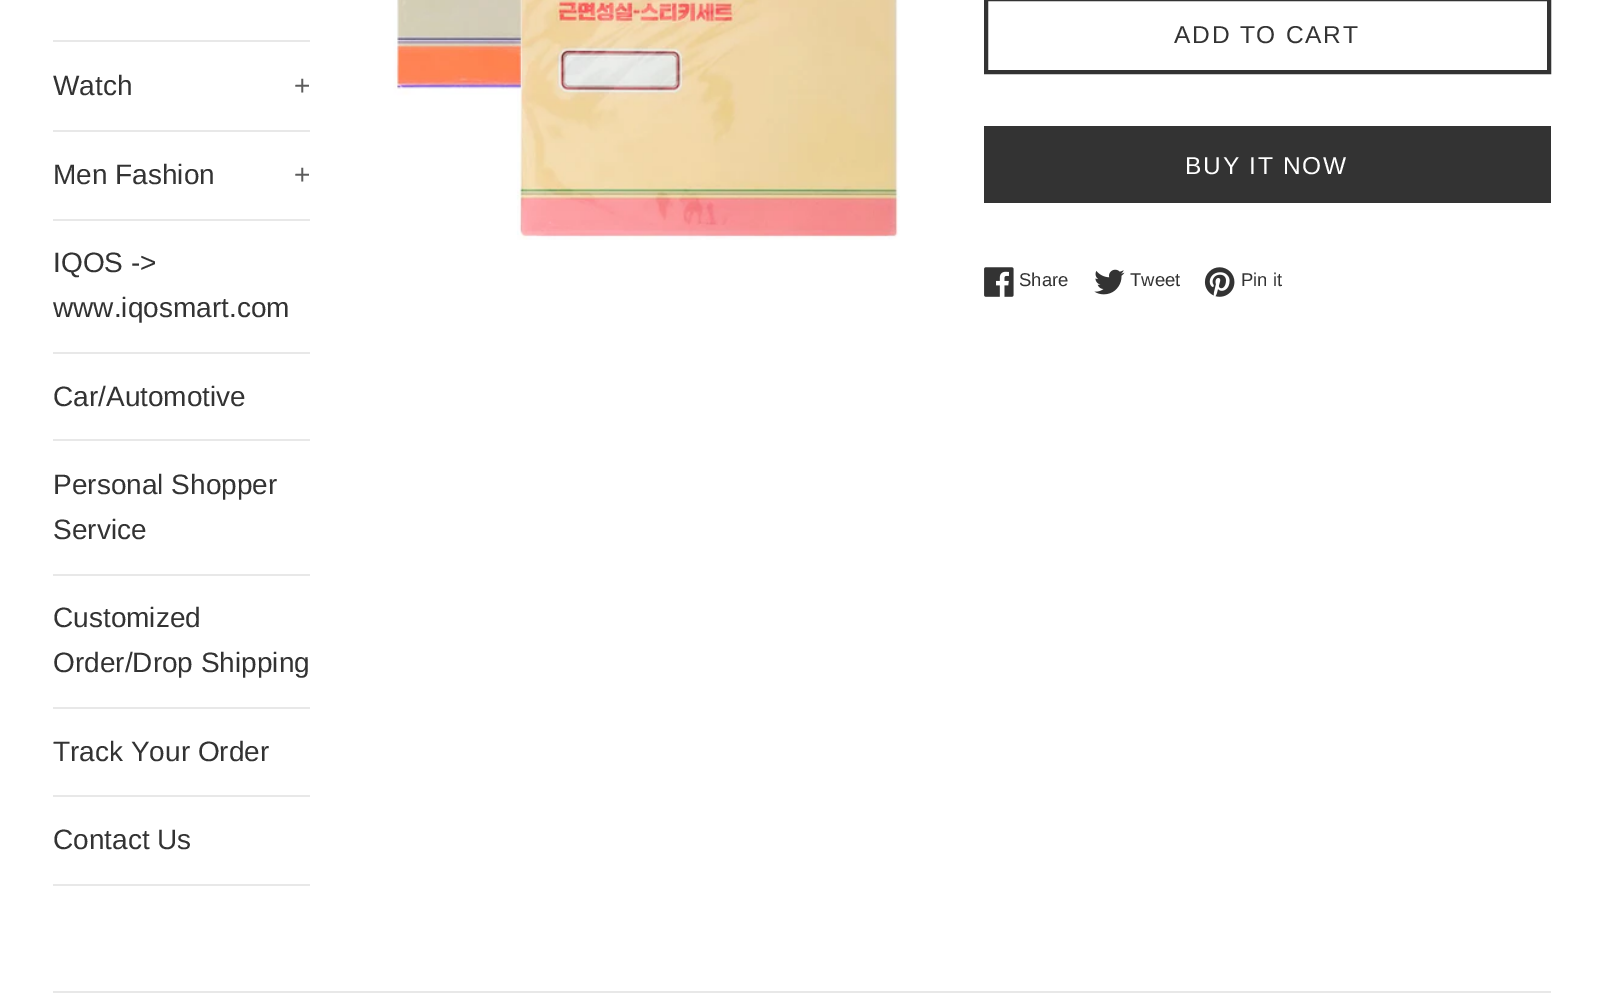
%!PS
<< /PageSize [1602 999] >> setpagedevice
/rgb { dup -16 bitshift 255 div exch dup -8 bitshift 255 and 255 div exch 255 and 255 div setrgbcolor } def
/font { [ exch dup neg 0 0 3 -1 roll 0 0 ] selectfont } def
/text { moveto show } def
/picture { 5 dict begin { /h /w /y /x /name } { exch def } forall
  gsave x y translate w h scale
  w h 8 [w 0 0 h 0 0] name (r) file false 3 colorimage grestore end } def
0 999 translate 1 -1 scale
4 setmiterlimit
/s1 { /LiberationSans-Regular 28 font 16#333333 rgb } def
/s2 { /LiberationSans-Regular 28 font 16#5C5C5C rgb } def
/s3 { /LiberationSans-Regular 18.5 font 16#333333 rgb } def
16#FFFFFF rgb
0 0 1602 999 rectfill
16#E8E8E8 rgb
53 40 257 2 rectfill
53 130 257 2 rectfill
s1
(Watch) 53 95 text
s2
(+) 294 95 text
16#E8E8E8 rgb
53 219 257 2 rectfill
s1
(Men Fashion) 53 184 text
s2
(+) 294 184 text
16#E8E8E8 rgb
53 352 257 2 rectfill
s1
(IQOS ->) 53 272 text
(www.iqosmart.com) 53 317 text
16#E8E8E8 rgb
53 439 257 2 rectfill
s1
(Car/Automotive) 53 406 text
16#E8E8E8 rgb
53 574 257 2 rectfill
s1
(Personal Shopper) 53 494 text
(Service) 53 539 text
16#E8E8E8 rgb
53 707 257 2 rectfill
s1
(Customized) 53 627 text
(Order/Drop Shipping) 53 672 text
16#E8E8E8 rgb
53 795 257 2 rectfill
s1
(Track Your Order) 53 761 text
16#E8E8E8 rgb
53 884 257 2 rectfill
s1
(Contact Us) 53 849 text
(pic1.raw) 393 0 507 240 picture
4 setlinewidth
986 -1 563 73 rectstroke
/LiberationSans-Regular 24.5 font
1174 43 moveto 1.75 0 (ADD TO CART) ashow
984 126 567 77 rectfill
16#FFFFFF rgb
1185 174 moveto 1.75 0 (BUY IT NOW) ashow
(pic2.raw) 984 267 30 30 picture
s3
(Share) 1019 286 text
(pic3.raw) 1094 269 31 26 picture
(Tweet) 1130 286 text
(pic4.raw) 1204 267 31 30 picture
(Pin it) 1241 286 text
16#E8E8E8 rgb
53 991 1498 2 rectfill
showpage
